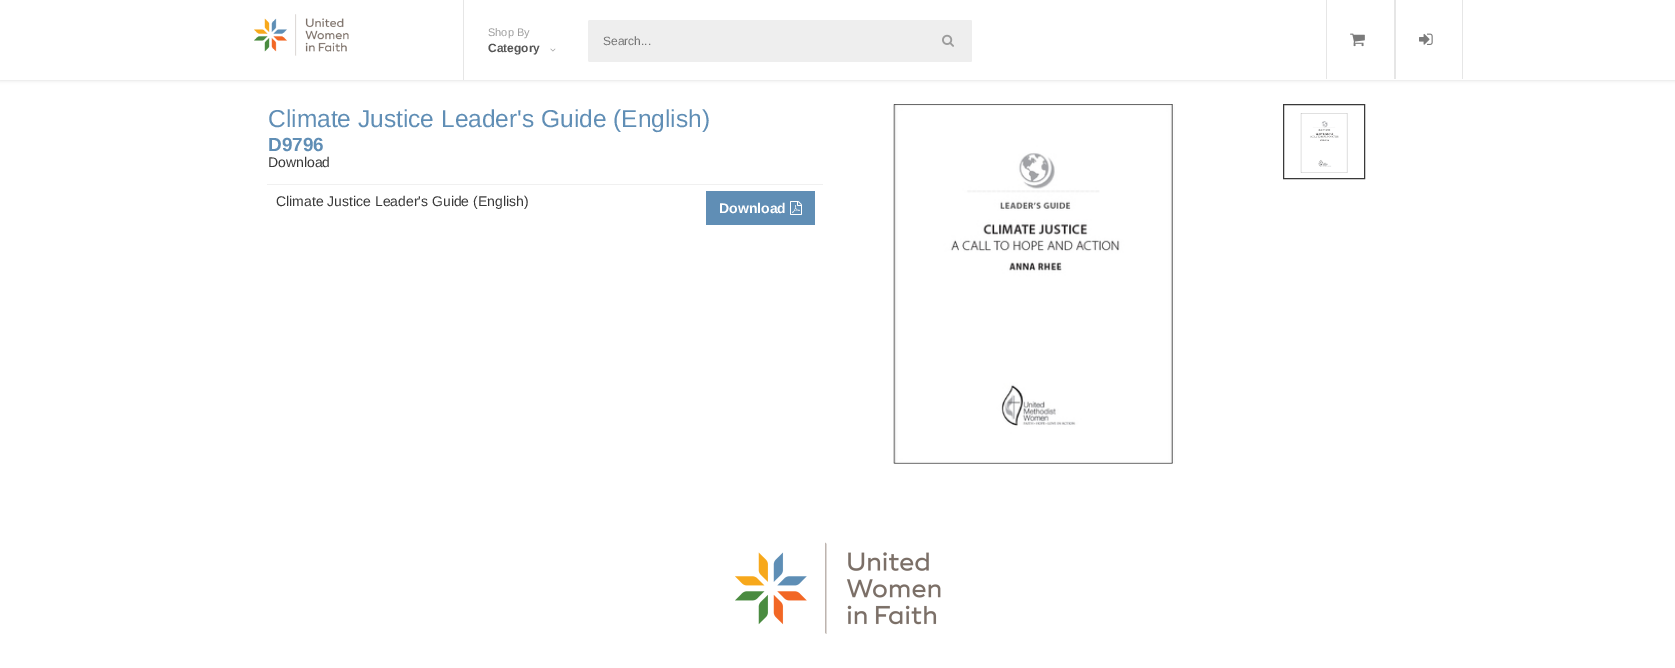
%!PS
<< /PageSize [1675 668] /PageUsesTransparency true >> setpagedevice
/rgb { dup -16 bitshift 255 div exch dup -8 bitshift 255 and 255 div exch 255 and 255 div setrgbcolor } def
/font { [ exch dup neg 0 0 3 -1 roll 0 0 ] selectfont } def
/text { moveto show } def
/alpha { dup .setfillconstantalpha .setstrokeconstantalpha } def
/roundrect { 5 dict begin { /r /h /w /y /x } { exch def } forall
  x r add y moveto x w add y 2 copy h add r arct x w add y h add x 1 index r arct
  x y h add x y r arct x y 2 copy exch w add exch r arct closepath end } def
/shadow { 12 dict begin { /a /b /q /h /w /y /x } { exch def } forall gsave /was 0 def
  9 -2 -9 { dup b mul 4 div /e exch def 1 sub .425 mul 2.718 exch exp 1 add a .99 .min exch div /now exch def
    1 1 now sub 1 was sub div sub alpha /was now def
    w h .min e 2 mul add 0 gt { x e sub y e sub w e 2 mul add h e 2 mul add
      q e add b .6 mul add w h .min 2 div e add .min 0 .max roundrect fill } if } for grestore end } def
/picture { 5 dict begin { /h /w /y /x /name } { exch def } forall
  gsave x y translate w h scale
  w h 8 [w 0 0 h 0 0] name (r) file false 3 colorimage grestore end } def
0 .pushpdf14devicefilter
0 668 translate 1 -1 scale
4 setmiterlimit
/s1 { /LiberationSans-Regular 11 font 16#9E9E9E rgb } def
/s2 { /LiberationSans-Bold 12 font 16#555555 rgb } def
/s3 { /LiberationSans-Regular 12 font 16#757575 rgb } def
/s4 { /LiberationSans-Regular 24.5 font 16#608EB5 rgb } def
/s5 { /LiberationSans-Bold 19 font 16#608EB5 rgb } def
/s6 { /LiberationSans-Regular 14 font 16#393939 rgb } def
/s7 { /LiberationSans-Bold 14 font 16#FFFFFF rgb } def
16#FFFFFF rgb
0 0 1675 668 rectfill
16#000000 rgb
0 0 1675 80 0 2 0.16 shadow
16#FFFFFF rgb
0 0 1675 80 rectfill
(pic1.raw) 254 14 95 42 picture
16#E6E6E6 rgb
463 0 1 80 rectfill
s1
(Shop By) 488 36 text
s2
(Category) 488 52 text
(pic2.raw) 550 48 6 4 picture
16#EEEEEE rgb
588 20 384 42 2 roundrect fill
s3
(Search...) 603 45 text
16#EEEEEE rgb
923 20 moveto 970 20 lineto 971 20 972 21 972 22 curveto 972 60 lineto 972 61 971 62 970 62 curveto 923 62 lineto closepath fill
(pic3.raw) 942 34 12 13 picture
16#E6E6E6 rgb
1326 0 1 79 rectfill
(pic4.raw) 1350 33 15 14 picture
1462 0 1 79 rectfill
1394 0 2 79 rectfill
(pic5.raw) 1419 33 14 12 picture
s4
(Climate Justice Leader's Guide \(English\)) 268 127 text
s5
(D9796) 268 151 text
s6
(Download) 268 167 text
(Climate Justice Leader's Guide \(English\)) 276 206 text
16#F0F0F0 rgb
267 184 556 1 rectfill
16#608EB5 rgb
706 191 109 34 rectfill
s7
(Download) 719 213 text
(pic6.raw) 790 201 12 14 picture
(pic7.raw) 893 104 282 360 picture
16#393939 rgb
1283.5 104.5 81 74 rectstroke
(pic8.raw) 1300 113 48 60 picture
(pic9.raw) 735 542 206 92 picture
.poppdf14devicefilter showpage
